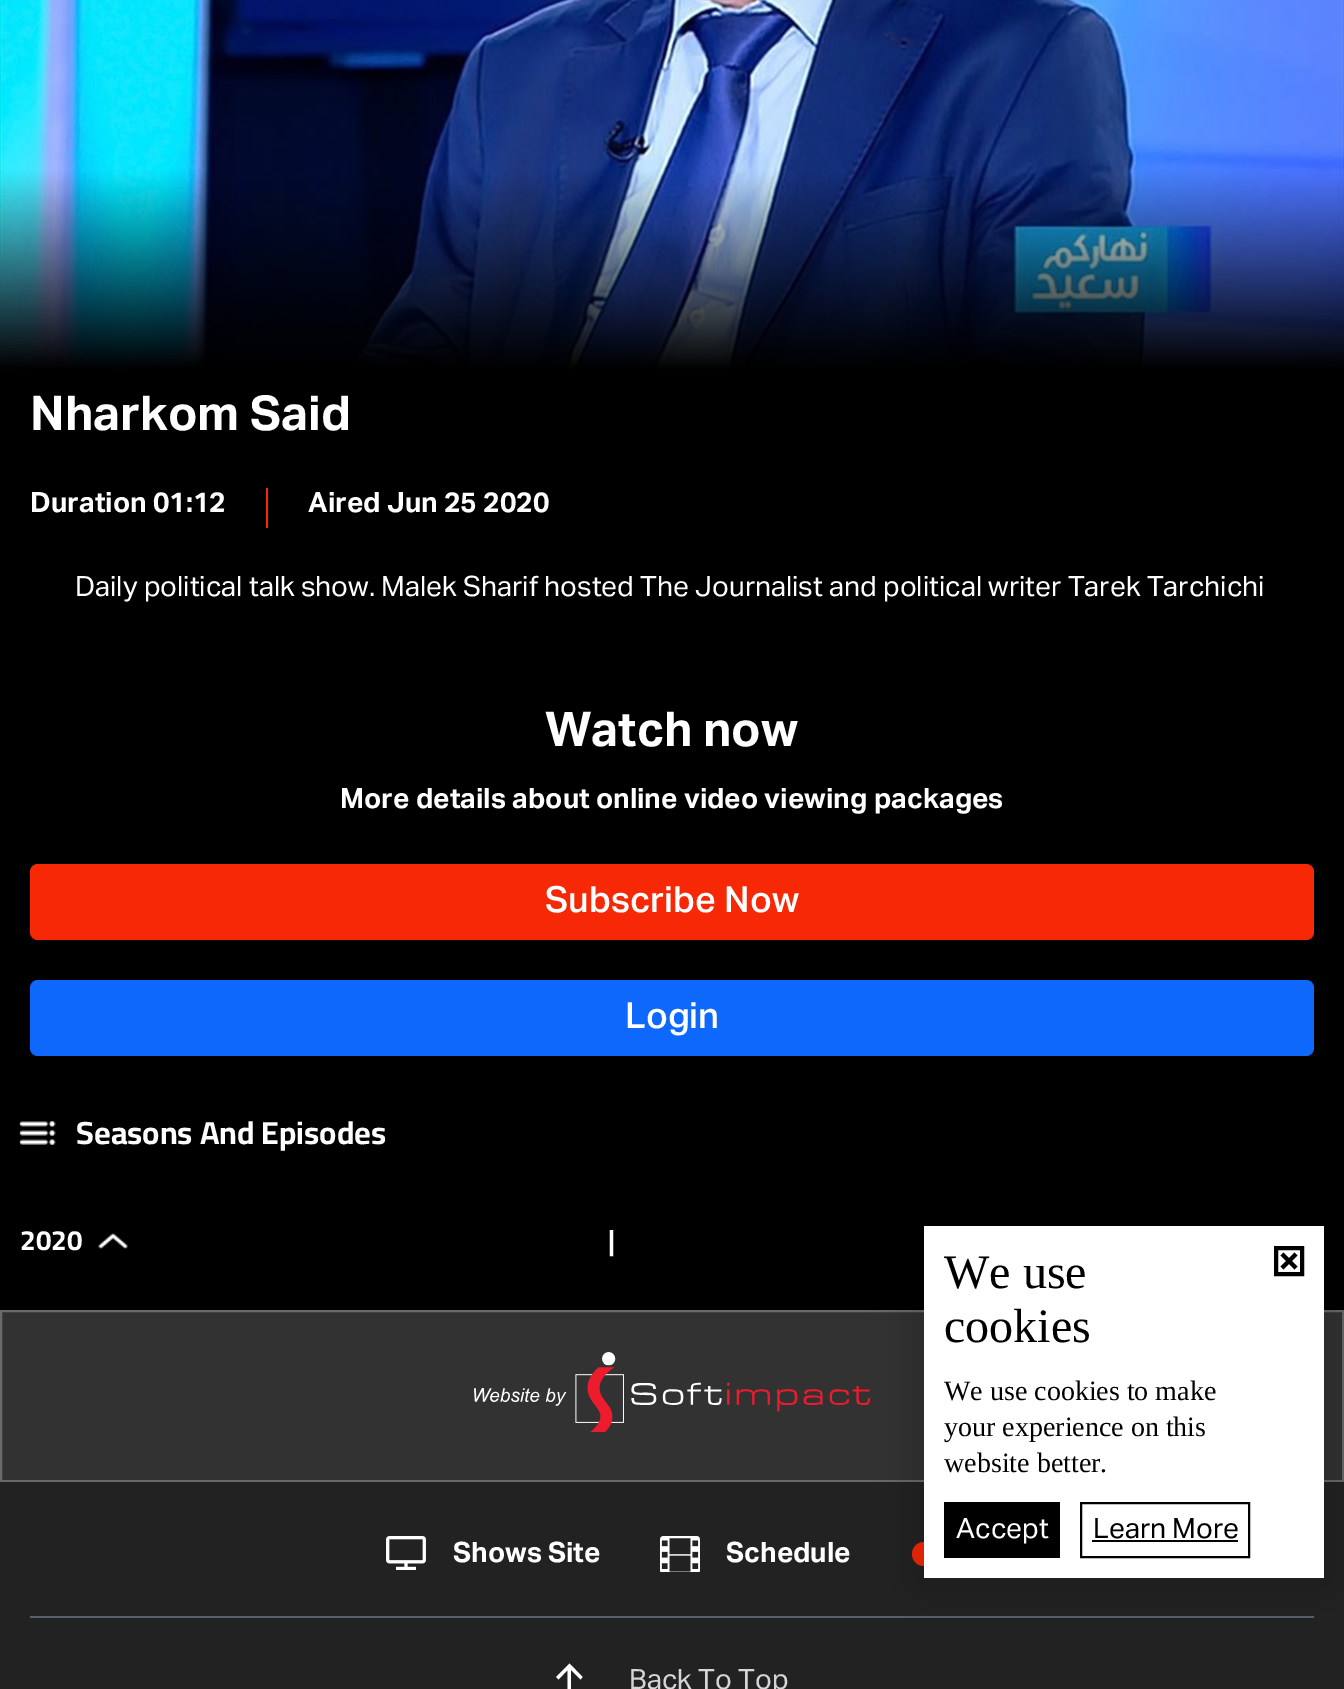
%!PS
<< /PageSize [1344 1689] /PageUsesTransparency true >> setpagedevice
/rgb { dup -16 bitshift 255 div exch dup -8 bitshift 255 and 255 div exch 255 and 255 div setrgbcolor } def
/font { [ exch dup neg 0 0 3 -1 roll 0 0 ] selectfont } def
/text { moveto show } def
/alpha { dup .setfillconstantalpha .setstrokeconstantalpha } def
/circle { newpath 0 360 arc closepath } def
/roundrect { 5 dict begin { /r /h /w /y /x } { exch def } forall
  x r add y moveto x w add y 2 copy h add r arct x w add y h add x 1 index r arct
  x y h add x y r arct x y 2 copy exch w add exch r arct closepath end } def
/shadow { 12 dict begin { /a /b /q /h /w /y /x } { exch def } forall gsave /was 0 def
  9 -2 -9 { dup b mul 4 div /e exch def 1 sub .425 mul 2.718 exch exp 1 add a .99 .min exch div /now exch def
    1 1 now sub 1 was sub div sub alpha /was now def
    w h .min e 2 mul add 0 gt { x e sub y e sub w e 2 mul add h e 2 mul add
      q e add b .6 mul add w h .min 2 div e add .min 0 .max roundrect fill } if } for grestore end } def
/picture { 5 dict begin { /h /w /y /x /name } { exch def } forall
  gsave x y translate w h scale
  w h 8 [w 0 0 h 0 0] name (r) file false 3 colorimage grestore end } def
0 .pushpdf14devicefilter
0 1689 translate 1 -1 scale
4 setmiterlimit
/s1 { /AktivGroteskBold-Bold 48 font 16#FFFFFF rgb } def
/s2 { /AktivGroteskBold-Bold 28 font 16#FFFFFF rgb } def
/s3 { /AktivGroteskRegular-Regular 28 font 16#FFFFFF rgb } def
/s4 { /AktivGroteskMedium-Medium 36 font 16#FFFFFF rgb } def
/s5 { /Cairo-Bold 32 font 16#FFFFFF rgb } def
/s6 { /Cairo-Bold 28 font 16#FFFFFF rgb } def
/s7 { /LiberationSerif-Regular 48 font 16#000000 rgb } def
/s8 { /LiberationSerif-Regular 28 font 16#000000 rgb } def
/s9 { /AktivGroteskRegular-Regular 28 font 16#000000 rgb } def
/s10 { /AktivGroteskRegular-Regular 28 font 16#D4D5D7 rgb } def
16#FFFFFF rgb
0 0 1344 1689 rectfill
(pic1.raw) 0 0 1344 370 picture
16#000000 rgb
0 370 1344 940 rectfill
s1
(Nharkom Said) 30 430 text
s2
(Duration 01:12) 30 512 text
16#F72805 rgb
266 488 2 40 rectfill
s2
(Aired Jun 25 2020) 308 512 text
s3
(Daily political talk show. Malek Sharif hosted The Journalist and political writer Tarek Tarchichi) 75 596 text
s1
(Watch now) 545 746 text
s2
(More details about online video viewing packages) 340 808 text
16#F72805 rgb
30 864 1284 76 8 roundrect fill
s4
(Subscribe Now) 545 912 text
16#0E68FC rgb
30 980 1284 76 8 roundrect fill
s4
(Login) 625 1028 text
(pic2.raw) 19 1121 37 24 picture
s5
(Seasons And Episodes) 76 1144 text
s6
(2020) 20 1250 text
(pic3.raw) 98 1233 30 16 picture
(|) 608 1250 text
16#323232 rgb
1 1311 moveto 1343 1311 lineto 1343 1481 lineto 1 1481 lineto closepath gsave fill grestore
16#696969 rgb
2 setlinewidth
stroke
(pic4.raw) 474 1352 396 80 picture
16#222222 rgb
0 1482 1344 207 rectfill
16#586069 rgb
30 1616 1284 2 rectfill
16#F72805 rgb
924 1554 12 circle fill
16#000000 rgb
918 1220 412 364 0 24 0.2 shadow
16#FFFFFF rgb
924 1226 400 352 rectfill
s7
(We use) 944 1288 text
(cookies) 944 1342 text
4 setlinewidth
1276 1248 26 26 rectstroke
1280.5 1255.5 moveto 1283.5 1252.5 lineto 1297.5 1266.5 lineto 1294.5 1269.5 lineto closepath fill
1294.5 1252.5 moveto 1297.5 1255.5 lineto 1283.5 1269.5 lineto 1280.5 1266.5 lineto closepath fill
s8
(We use cookies to make) 944 1400 text
(your experience on this) 944 1436 text
(website better.) 944 1472 text
944 1502 116 56 rectfill
s3
(Accept) 956 1538 text
16#000000 rgb
2 setlinewidth
1081 1503 168 54 rectstroke
(Learn More) 1093 1538 text
1092 1540 146 2 rectfill
(pic5.raw) 386 1536 40 34 picture
s2
(Shows Site) 453 1562 text
(pic6.raw) 660 1536 40 36 picture
(Schedule) 726 1562 text
571 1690.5 moveto 567.5 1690.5 lineto 567.5 1670 lineto 558.5 1679.5 lineto 556 1677 lineto 569.5 1663.5 lineto 582.5 1677 lineto 580.5 1679.5 lineto 571 1670 lineto closepath fill
s10
(Back To Top) 629 1689 text
.poppdf14devicefilter showpage
